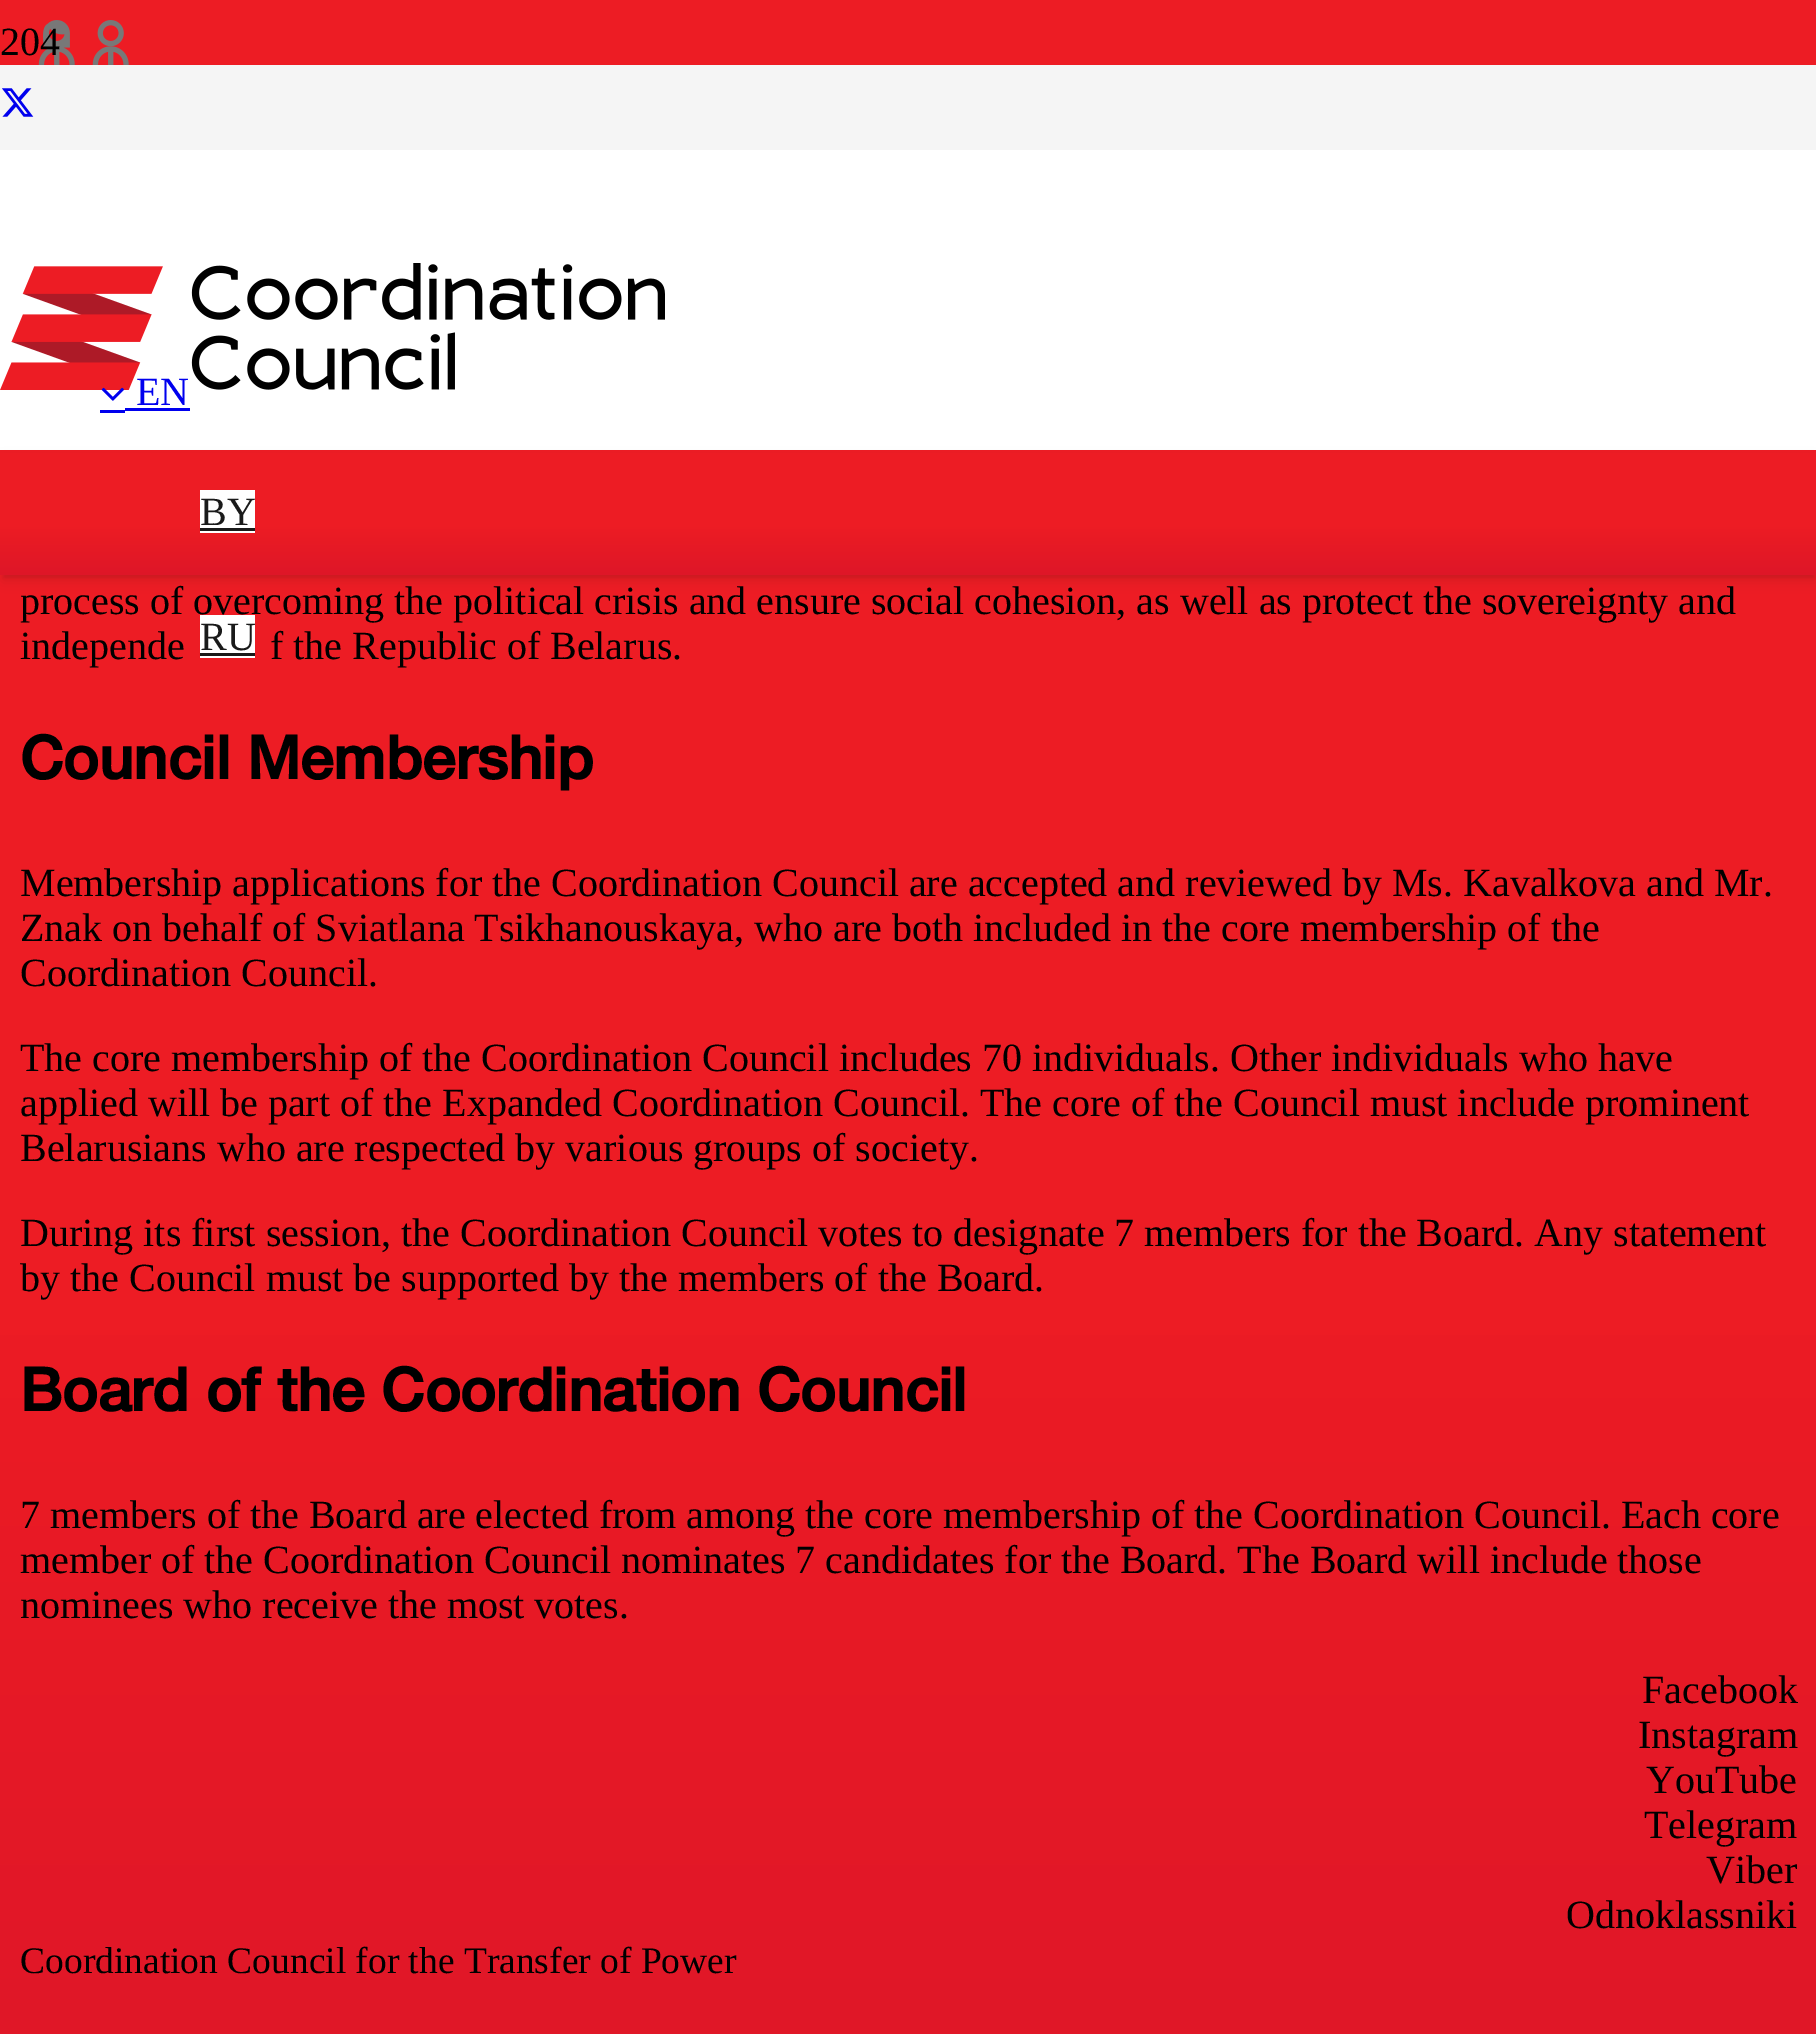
%!PS
<< /PageSize [1816 2034] /PageUsesTransparency true >> setpagedevice
/rgb { dup -16 bitshift 255 div exch dup -8 bitshift 255 and 255 div exch 255 and 255 div setrgbcolor } def
/font { [ exch dup neg 0 0 3 -1 roll 0 0 ] selectfont } def
/text { moveto show } def
/alpha { dup .setfillconstantalpha .setstrokeconstantalpha } def
/roundrect { 5 dict begin { /r /h /w /y /x } { exch def } forall
  x r add y moveto x w add y 2 copy h add r arct x w add y h add x 1 index r arct
  x y h add x y r arct x y 2 copy exch w add exch r arct closepath end } def
/shadow { 12 dict begin { /a /b /q /h /w /y /x } { exch def } forall gsave /was 0 def
  9 -2 -9 { dup b mul 4 div /e exch def 1 sub .425 mul 2.718 exch exp 1 add a .99 .min exch div /now exch def
    1 1 now sub 1 was sub div sub alpha /was now def
    w h .min e 2 mul add 0 gt { x e sub y e sub w e 2 mul add h e 2 mul add
      q e add b .6 mul add w h .min 2 div e add .min 0 .max roundrect fill } if } for grestore end } def
/picture { 5 dict begin { /h /w /y /x /name } { exch def } forall
  gsave x y translate w h scale
  w h 8 [w 0 0 h 0 0] name (r) file false 3 colorimage grestore end } def
0 .pushpdf14devicefilter
0 2034 translate 1 -1 scale
4 setmiterlimit
/s1 { /LiberationSerif-Regular 40 font 16#000000 rgb } def
/s2 { /LiberationSerif-Regular 40 font 16#0000EE rgb } def
/s3 { /LiberationSerif-Regular 40 font 16#1A1A1A rgb } def
/s4 { /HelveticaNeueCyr-Bold 60 font 16#000000 rgb } def
/s5 { /LiberationSerif-Regular 37.5 font 16#000000 rgb } def
16#FFFFFF rgb
0 0 1816 2034 rectfill
gsave 0 0 moveto 1816 0 lineto 1816 2034 lineto 0 2034 lineto closepath clip newpath
<< /ShadingType 2 /ColorSpace /DeviceRGB /Coords [909 0 909 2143] /Extend [true true] /Function << /FunctionType 3 /Domain [0 1] /Functions [<< /FunctionType 2 /Domain [0 1] /C0 [0.929 0.11 0.141] /C1 [0.929 0.11 0.141] /N 1 >> << /FunctionType 2 /Domain [0 1] /C0 [0.929 0.11 0.141] /C1 [0.871 0.086 0.157] /N 1 >>] /Bounds [0.61] /Encode [0 1 0 1] >> >> shfill grestore
(pic4.raw) 38 20 91 45 picture
s1
(204) 0 55 text
16#F5F5F5 rgb
0 65 1816 85 rectfill
(pic1.raw) 2 88 32 29 picture
16#FFFFFF rgb
0 150 1816 300 rectfill
(pic2.raw) 0 263 665 127 picture
16#000000 rgb
3 458 1812 120 0 1 0.05 shadow
3 460 1812 120 0 6 0.1 shadow
gsave 0 453 moveto 1816 453 lineto 1816 575 lineto 0 575 lineto closepath clip newpath
<< /ShadingType 2 /ColorSpace /DeviceRGB /Coords [909 450 909 575] /Extend [true true] /Function << /FunctionType 3 /Domain [0 1] /Functions [<< /FunctionType 2 /Domain [0 1] /C0 [0.929 0.11 0.141] /C1 [0.929 0.11 0.141] /N 1 >> << /FunctionType 2 /Domain [0 1] /C0 [0.929 0.11 0.141] /C1 [0.871 0.086 0.157] /N 1 >>] /Bounds [0.61] /Encode [0 1 0 1] >> >> shfill grestore
(pic3.raw) 101 387 23 14 picture
s2
(EN) 136 405 text
100 410 25 3 rectfill
125 408 65 3 rectfill
16#FFFFFF rgb
200 490 55 43 rectfill
s3
(BY) 200 525 text
200 528 55 3 rectfill
s1
(process of overcoming the political crisis and ensure social cohesion, as well as protect the sovereignty and) 20 614 text
16#FFFFFF rgb
200 615 55 43 rectfill
s3
(RU) 200 650 text
200 653 55 3 rectfill
s1
(independe) 20 659 text
(f the Republic of Belarus.) 270 659 text
s4
(Council Membership) 20 779 text
s1
(Membership applications for the Coordination Council are accepted and reviewed by Ms. Kavalkova and Mr.) 20 896 text
(Znak on behalf of Sviatlana Tsikhanouskaya, who are both included in the core membership of the) 20 941 text
(Coordination Council.) 20 986 text
(The core membership of the Coordination Council includes 70 individuals. Other individuals who have) 20 1071 text
(applied will be part of the Expanded Coordination Council. The core of the Council must include prominent) 20 1116 text
(Belarusians who are respected by various groups of society.) 20 1161 text
(During its first session, the Coordination Council votes to designate 7 members for the Board. Any statement) 20 1246 text
(by the Council must be supported by the members of the Board.) 20 1291 text
s4
(Board of the Coordination Council) 20 1411 text
s1
(7 members of the Board are elected from among the core membership of the Coordination Council. Each core) 20 1528 text
(member of the Coordination Council nominates 7 candidates for the Board. The Board will include those) 20 1573 text
(nominees who receive the most votes.) 20 1618 text
(Facebook) 1642 1703 text
(Instagram) 1638 1748 text
(YouTube) 1646 1793 text
(Telegram) 1644 1838 text
(Viber) 1706 1883 text
(Odnoklassniki) 1566 1928 text
s5
(Coordination Council for the Transfer of Power) 20 1973 text
.poppdf14devicefilter showpage
